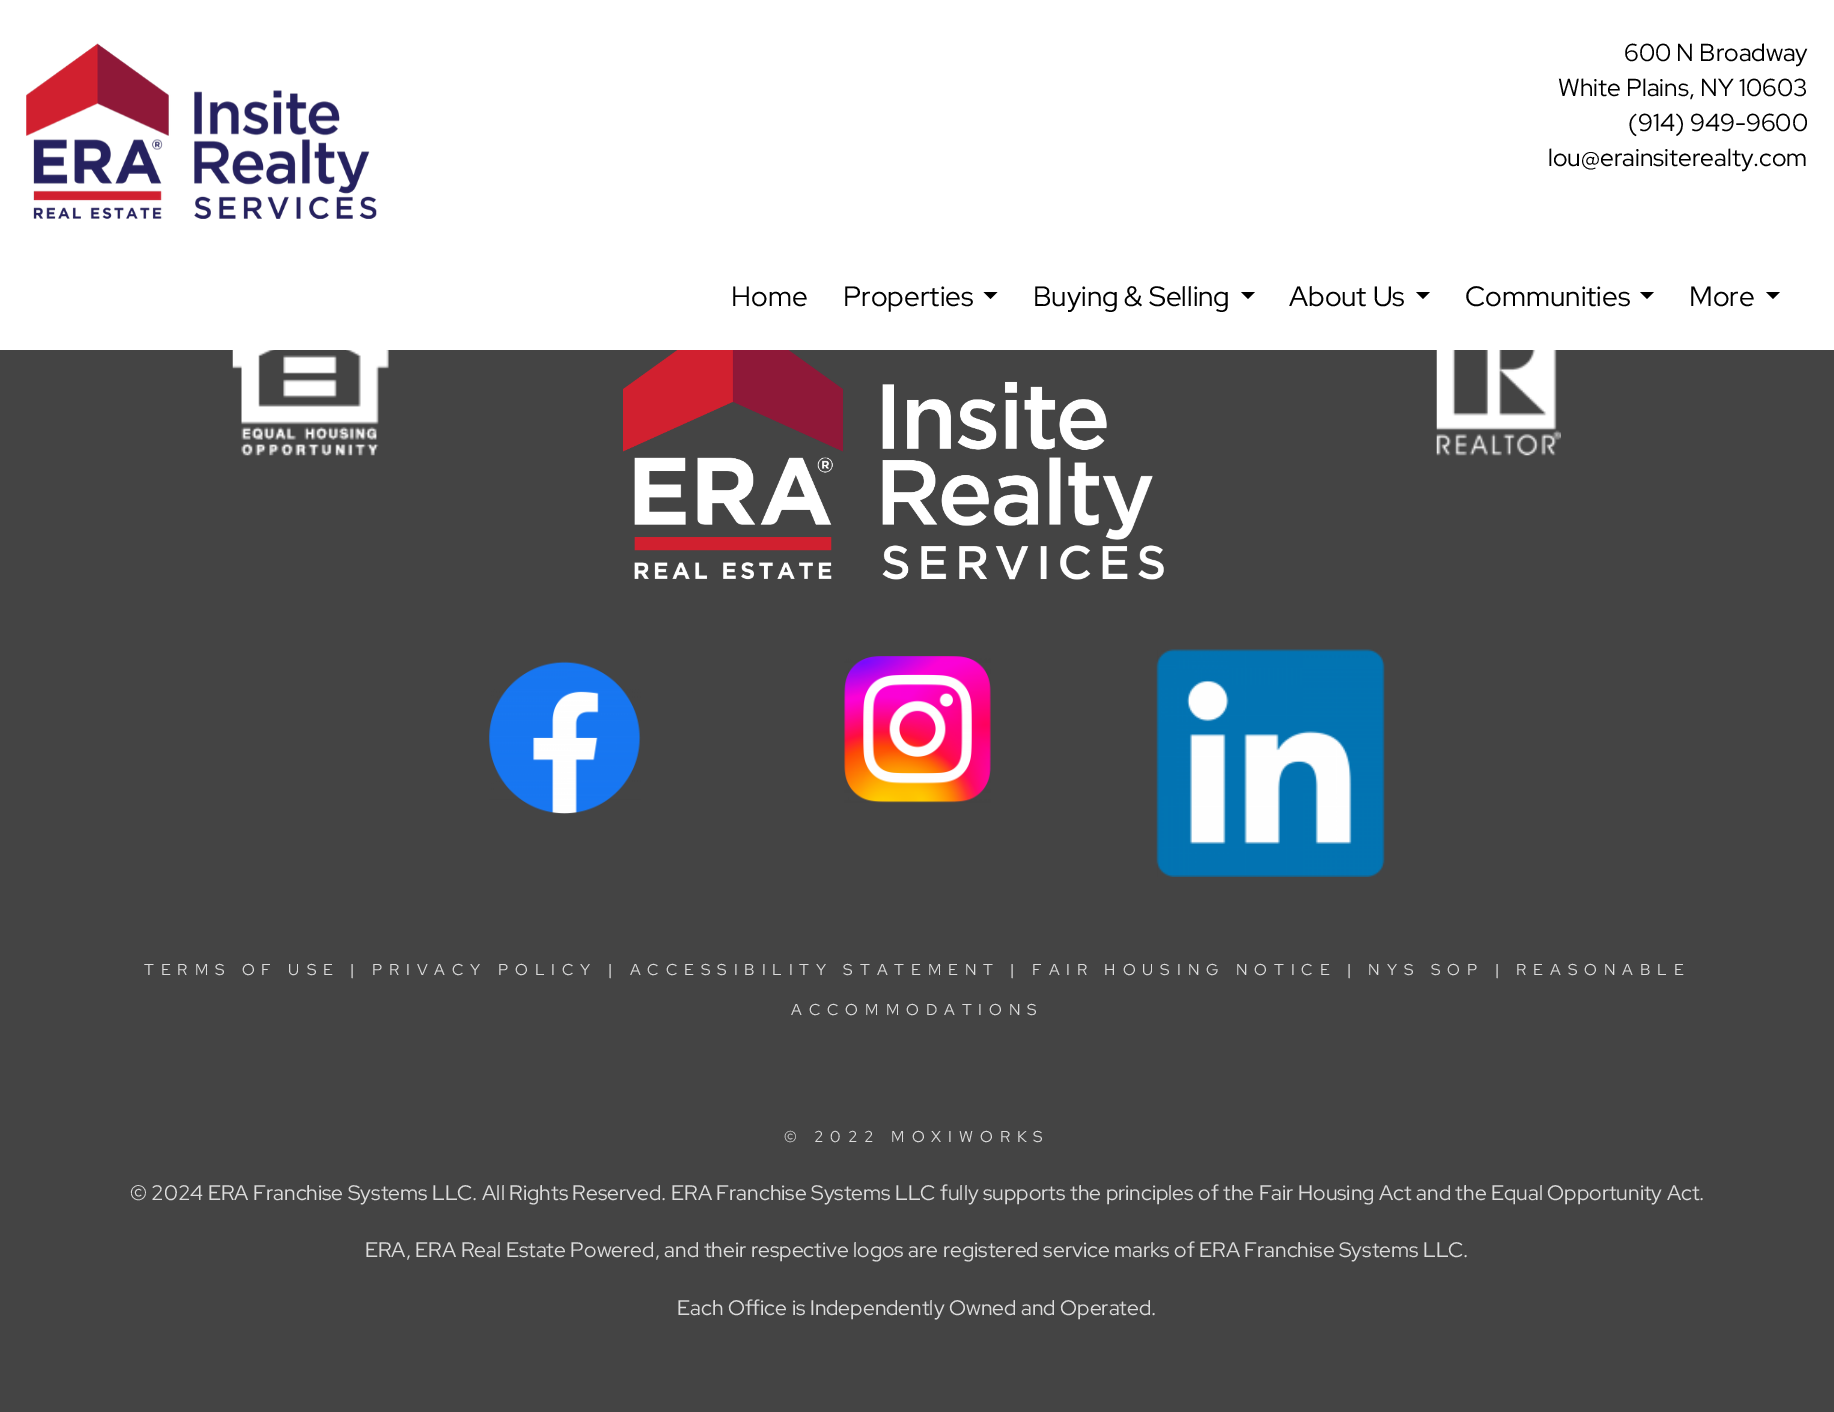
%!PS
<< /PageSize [1834 1412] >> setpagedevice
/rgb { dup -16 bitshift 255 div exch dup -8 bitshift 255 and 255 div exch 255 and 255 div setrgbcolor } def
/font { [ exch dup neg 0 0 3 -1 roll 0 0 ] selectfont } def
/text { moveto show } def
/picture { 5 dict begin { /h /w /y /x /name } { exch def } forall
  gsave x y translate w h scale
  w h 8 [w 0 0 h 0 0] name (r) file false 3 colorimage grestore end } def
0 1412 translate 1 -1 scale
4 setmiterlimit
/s1 { /RedHatDisplay-Regular 24.5 font 16#000000 rgb } def
/s2 { /RedHatDisplay-Regular 28 font 16#000000 rgb } def
/s3 { /RedHatDisplay-Regular 21 font 16#DBDBDB rgb } def
16#444444 rgb
0 0 1834 1412 rectfill
16#FFFFFF rgb
0 0 1834 350 rectfill
(pic1.raw) 26 43 351 176 picture
s1
(600 N Broadway) 1624 61 text
(White Plains, NY 10603) 1558 96 text
(\(914\) 949-9600) 1628 131 text
(lou@erainsiterealty.com) 1548 166 text
s2
(Home) 731 306 text
(Properties) 843 306 text
983.5 292 moveto 997.5 292 lineto 990.5 299 lineto closepath fill
(Buying & Selling) 1033 306 text
1241 292 moveto 1255 292 lineto 1248 299 lineto closepath fill
(About Us) 1289 306 text
1416 292 moveto 1430 292 lineto 1423 299 lineto closepath fill
(Communities) 1465 306 text
1640 292 moveto 1654 292 lineto 1647 299 lineto closepath fill
(More) 1689 306 text
1766 292 moveto 1780 292 lineto 1773 299 lineto closepath fill
(pic2.raw) 232 350 157 106 picture
(pic3.raw) 623 350 541 230 picture
(pic4.raw) 1436 350 125 106 picture
(pic5.raw) 489 661 152 153 picture
(pic6.raw) 844 656 147 147 picture
(pic7.raw) 1156 649 229 228 picture
/RedHatDisplay-Regular 15.75 font
16#DBDBDB rgb
144 975 moveto 7 0 (TERMS OF USE | PRIVACY POLICY | ACCESSIBILITY STATEMENT | FAIR HOUSING NOTICE | NYS SOP | REASONABLE) ashow
791 1015 moveto 7 0 (ACCOMMODATIONS) ashow
784 1142 moveto 7 0 (© 2022 MOXIWORKS) ashow
s3
(© 2024 ERA Franchise Systems LLC. All Rights Reserved. ERA Franchise Systems LLC fully supports the principles of the Fair Housing Act and the Equal Opportunity Act.) 130 1200 text
(ERA, ERA Real Estate Powered, and their respective logos are registered service marks of ERA Franchise Systems LLC.) 365 1257 text
(Each Office is Independently Owned and Operated.) 677 1315 text
showpage
